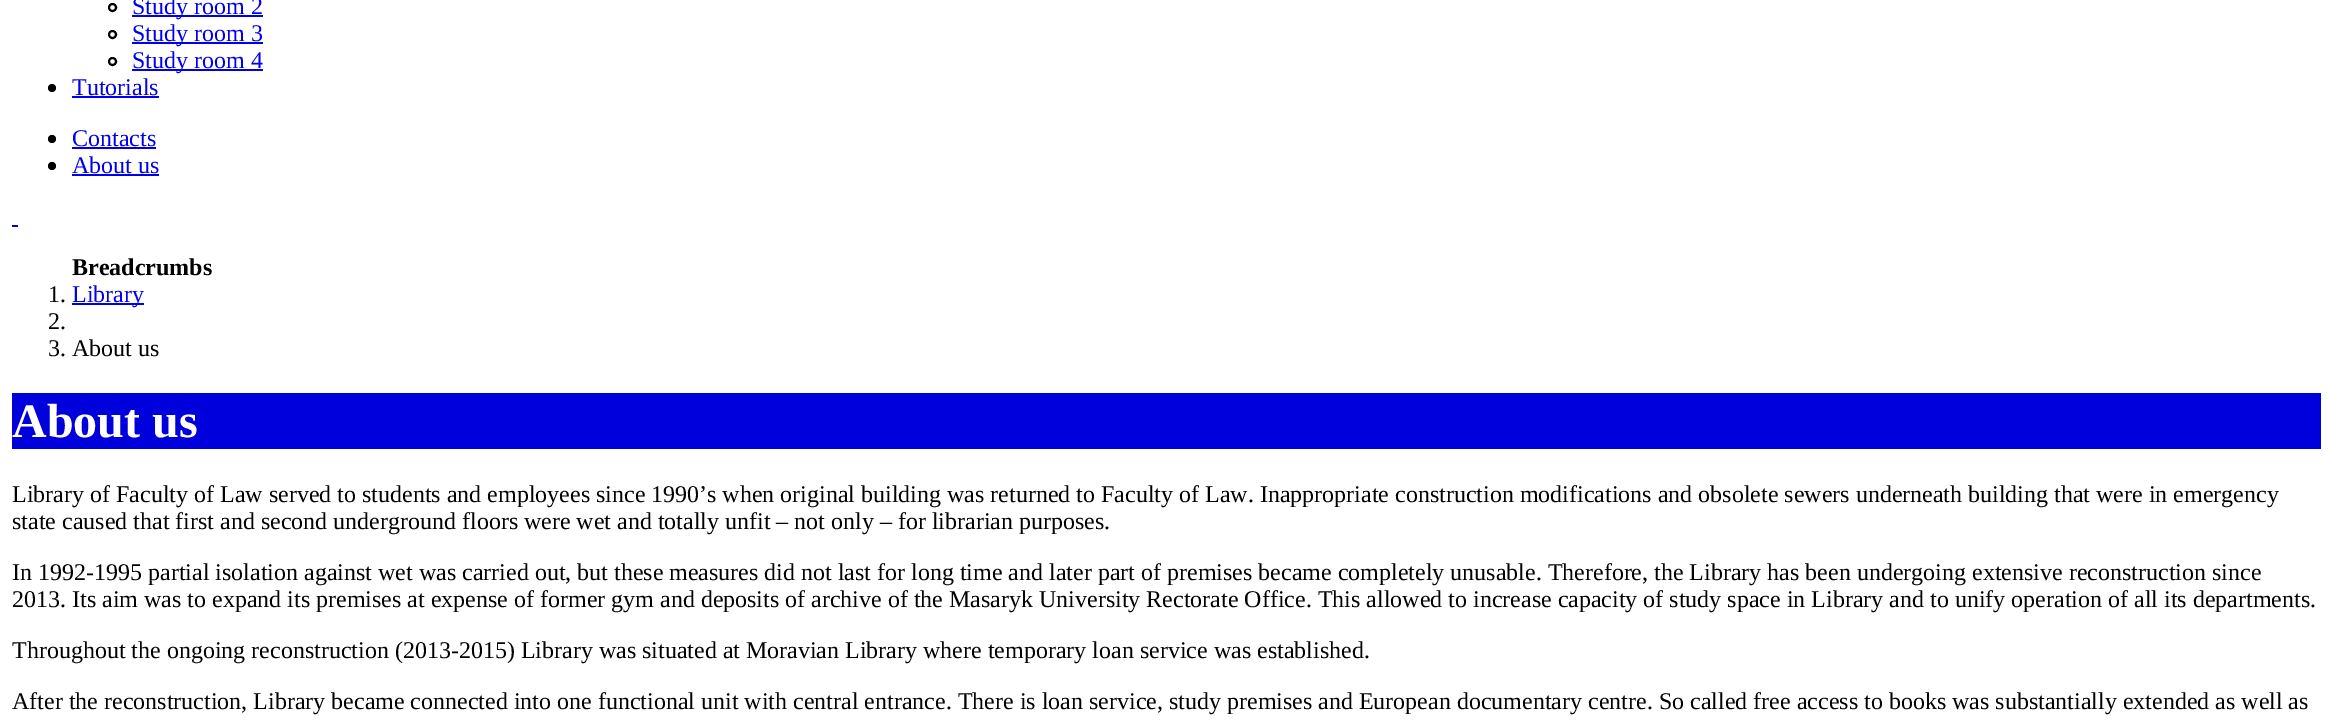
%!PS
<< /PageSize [2332 727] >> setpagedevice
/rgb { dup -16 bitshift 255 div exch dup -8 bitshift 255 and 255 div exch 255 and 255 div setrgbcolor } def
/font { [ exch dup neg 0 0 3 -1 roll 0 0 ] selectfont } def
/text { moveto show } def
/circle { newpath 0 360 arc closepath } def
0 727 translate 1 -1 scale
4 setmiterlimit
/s1 { /LiberationSerif-Regular 24 font 16#0000EE rgb } def
/s2 { /LiberationSerif-Bold 24 font 16#000000 rgb } def
/s3 { /LiberationSerif-Regular 24 font 16#000000 rgb } def
/s4 { /LiberationSerif-Bold 48 font 16#FFFFFF rgb } def
16#FFFFFF rgb
0 0 2332 727 rectfill
16#000000 rgb
2 setlinewidth
112.5 7.5 3.5 circle stroke
16#0000EE rgb
132 15 131 2 rectfill
s1
(Study room 2) 132 14 text
16#000000 rgb
112.5 34.5 3.5 circle stroke
16#0000EE rgb
132 42 131 2 rectfill
(Study room 3) 132 41 text
16#000000 rgb
112.5 61.5 3.5 circle stroke
16#0000EE rgb
132 69 131 2 rectfill
(Study room 4) 132 68 text
16#000000 rgb
52 88 4 circle fill
s1
(Tutorials) 72 95 text
72 96 87 2 rectfill
16#000000 rgb
52 139 4 circle fill
s1
(Contacts) 72 146 text
72 147 84 2 rectfill
16#000000 rgb
52 166 4 circle fill
s1
(About us) 72 173 text
72 174 87 2 rectfill
12 225 6 2 rectfill
s2
(Breadcrumbs) 72 275 text
s3
(1.) 48 302 text
16#0000EE rgb
72 303 72 2 rectfill
(Library) 72 302 text
s3
(2.) 48 329 text
(3. About us) 48 356 text
16#0000DC rgb
12 393 2309 56 rectfill
s4
(About us) 12 437 text
s3
(Library of Faculty of Law served to students and employees since 1990’s when original building was returned to Faculty of Law. Inappropriate construction modifications and obsolete sewers underneath building that were in emergency) 12 502 text
(state caused that first and second underground floors were wet and totally unfit – not only – for librarian purposes.) 12 529 text
(In 1992-1995 partial isolation against wet was carried out, but these measures did not last for long time and later part of premises became completely unusable. Therefore, the Library has been undergoing extensive reconstruction since) 12 580 text
(2013. Its aim was to expand its premises at expense of former gym and deposits of archive of the Masaryk University Rectorate Office. This allowed to increase capacity of study space in Library and to unify operation of all its departments.) 12 607 text
(Throughout the ongoing reconstruction \(2013-2015\) Library was situated at Moravian Library where temporary loan service was established.) 12 658 text
(After the reconstruction, Library became connected into one functional unit with central entrance. There is loan service, study premises and European documentary centre. So called free access to books was substantially extended as well as) 12 709 text
showpage
